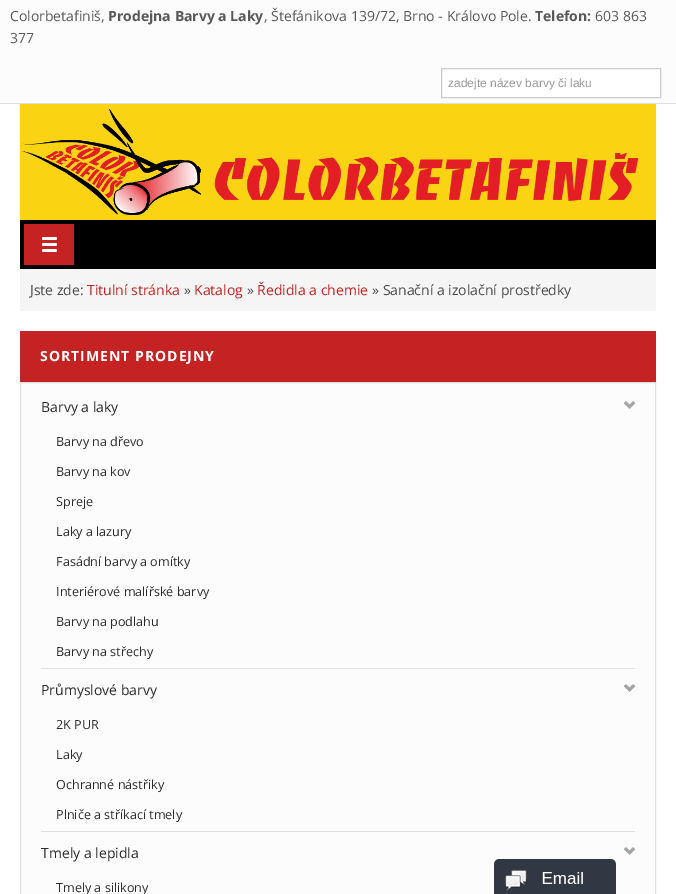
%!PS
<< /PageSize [676 894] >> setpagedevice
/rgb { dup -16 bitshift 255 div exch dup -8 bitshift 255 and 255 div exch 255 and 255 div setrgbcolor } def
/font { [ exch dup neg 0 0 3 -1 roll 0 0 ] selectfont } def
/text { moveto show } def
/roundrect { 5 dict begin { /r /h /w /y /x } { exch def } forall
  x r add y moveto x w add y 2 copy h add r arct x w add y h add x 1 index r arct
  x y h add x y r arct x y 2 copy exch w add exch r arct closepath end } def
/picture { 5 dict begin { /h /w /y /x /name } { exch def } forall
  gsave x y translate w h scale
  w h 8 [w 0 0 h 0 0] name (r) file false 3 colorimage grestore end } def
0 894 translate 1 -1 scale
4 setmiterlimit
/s1 { /OpenSans-Regular 14 font 16#595959 rgb } def
/s2 { /OpenSans-Bold 14 font 16#595959 rgb } def
/s3 { /LiberationSans-Regular 12 font 16#999999 rgb } def
/s4 { /OpenSans-Regular 14 font 16#4C4C4C rgb } def
/s5 { /OpenSans-Regular 14 font 16#C52323 rgb } def
/s6 { /OpenSans-Regular 14 font 16#2B2B2B rgb } def
/s7 { /OpenSans-Regular 12.6 font 16#2B2B2B rgb } def
16#FFFFFF rgb
0 0 676 894 rectfill
16#FCFCFC rgb
0 0 676 103 rectfill
16#DEDEDE rgb
0 103 676 1 rectfill
s1
(Colorbetafiniš,) 10 21 text
s2
(Prodejna Barvy a Laky) 108 21 text
s1
(, Štefánikova 139/72, Brno - Královo Pole.) 264 21 text
s2
(Telefon:) 535 21 text
s1
(603 863) 595 21 text
(377) 10 43 text
16#FFFFFF rgb
441.5 68.5 moveto 660.5 68.5 lineto 660.5 97.5 lineto 441.5 97.5 lineto closepath gsave fill grestore
16#CCCCCC rgb
stroke
s3
(zadejte název barvy či laku) 448 87 text
16#FAD412 rgb
20 104 636 116 rectfill
(pic1.raw) 20 109 619 106 picture
16#000000 rgb
20 220 636 49 rectfill
16#C52323 rgb
24 224 50 41 rectfill
16#FFFFFF rgb
42 237 15 3 1.5 roundrect fill
42 243 15 3 1.5 roundrect fill
42 249 15 3 1.5 roundrect fill
16#F5F5F5 rgb
20 269 636 42 rectfill
s4
(Jste zde:) 30 295 text
s5
(Titulní stránka) 87 295 text
s4
(») 184 295 text
s5
(Katalog) 194 295 text
s4
(») 247 295 text
s5
(Ředidla a chemie) 257 295 text
s4
(» Sanační a izolační prostředky) 372 295 text
16#C52323 rgb
20 331 636 51 rectfill
/OpenSans-Bold 14 font
16#FFFFFF rgb
40 361 moveto 1 0 (SORTIMENT PRODEJNY) ashow
16#FCFCFC rgb
20.5 382.5 moveto 655.5 382.5 lineto 655.5 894.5 lineto 20.5 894.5 lineto closepath gsave fill grestore
16#DEDEDE rgb
stroke
16#DFDFDF rgb
41 668 594 1 rectfill
s6
(Barvy a laky) 41 412 text
(pic2.raw) 623 401 13 8 picture
s7
(Barvy na dřevo) 56 446 text
(Barvy na kov) 56 476 text
(Spreje) 56 506 text
(Laky a lazury) 56 536 text
(Fasádní barvy a omítky) 56 566 text
(Interiérové malířské barvy) 56 596 text
(Barvy na podlahu) 56 626 text
(Barvy na střechy) 56 656 text
16#DFDFDF rgb
41 831 594 1 rectfill
s6
(Průmyslové barvy) 41 695 text
(pic2.raw) 623 684 13 8 picture
s7
(2K PUR) 56 729 text
(Laky) 56 759 text
(Ochranné nástřiky) 56 789 text
(Plniče a stříkací tmely) 56 819 text
s6
(Tmely a lepidla) 41 858 text
(pic2.raw) 623 847 13 8 picture
s7
(Tmely a silikony) 56 892 text
(pic3.raw) 494 859 122 35 picture
showpage
